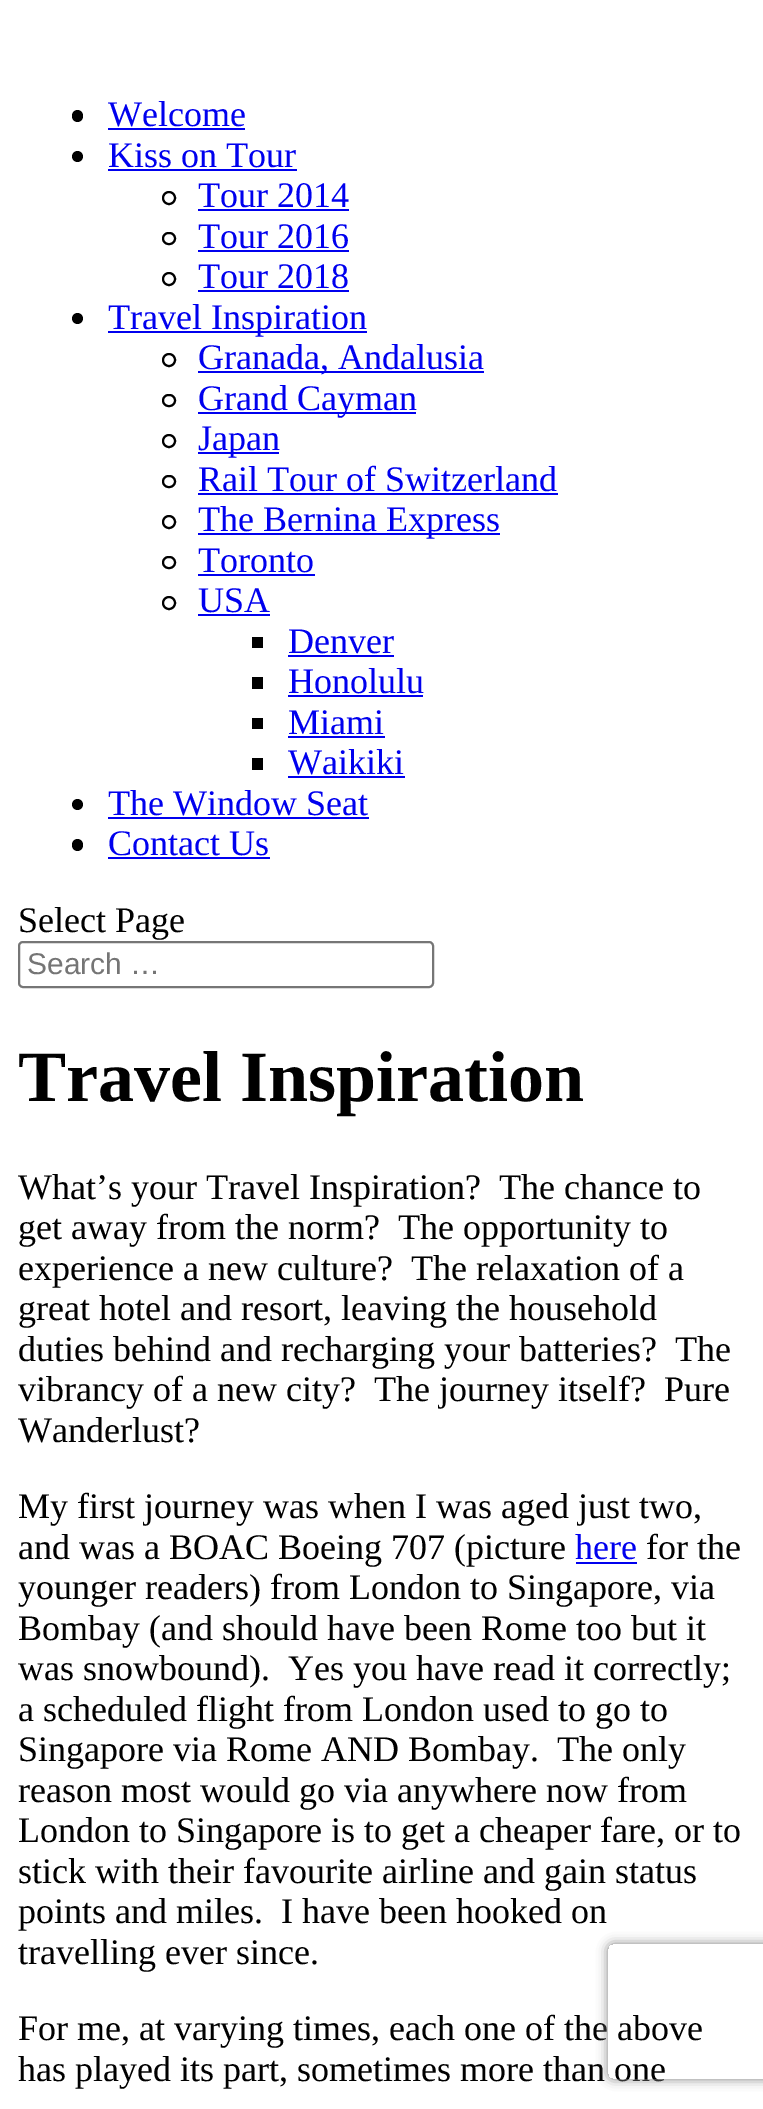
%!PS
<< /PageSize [763 2109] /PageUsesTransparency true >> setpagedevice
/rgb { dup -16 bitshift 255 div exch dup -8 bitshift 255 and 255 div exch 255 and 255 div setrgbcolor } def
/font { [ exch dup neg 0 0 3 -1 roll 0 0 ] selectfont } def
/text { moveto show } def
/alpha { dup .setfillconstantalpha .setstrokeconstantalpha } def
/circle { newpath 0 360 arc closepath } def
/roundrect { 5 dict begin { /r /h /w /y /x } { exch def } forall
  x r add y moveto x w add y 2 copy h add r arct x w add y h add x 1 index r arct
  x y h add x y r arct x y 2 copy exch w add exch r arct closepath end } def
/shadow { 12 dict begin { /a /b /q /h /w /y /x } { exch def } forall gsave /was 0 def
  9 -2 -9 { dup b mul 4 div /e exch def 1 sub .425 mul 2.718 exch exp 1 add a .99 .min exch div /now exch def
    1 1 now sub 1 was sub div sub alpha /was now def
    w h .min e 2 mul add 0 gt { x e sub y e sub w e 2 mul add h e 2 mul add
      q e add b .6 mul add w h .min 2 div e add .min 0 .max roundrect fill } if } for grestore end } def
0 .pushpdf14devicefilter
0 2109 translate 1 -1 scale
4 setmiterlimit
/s1 { /LiberationSerif-Regular 36 font 16#0000EE rgb } def
/s2 { /LiberationSerif-Regular 36 font 16#000000 rgb } def
/s3 { /LiberationSans-Regular 30 font 16#757575 rgb } def
/s4 { /LiberationSerif-Bold 72 font 16#000000 rgb } def
16#FFFFFF rgb
0 0 763 2109 rectfill
16#000000 rgb
72 110 11 12 5.5 roundrect fill
s1
(Welcome) 108 126 text
108 128 137 2 rectfill
16#000000 rgb
77.5 156.5 5.5 circle fill
s1
(Kiss on Tour) 108 167 text
108 169 189 2 rectfill
16#000000 rgb
2 setlinewidth
169 198 6 circle stroke
s1
(Tour 2014) 198 207 text
198 209 151 2 rectfill
16#000000 rgb
163 233 12 11 5.5 roundrect stroke
s1
(Tour 2016) 198 248 text
198 250 151 2 rectfill
16#000000 rgb
169 279 6 circle stroke
s1
(Tour 2018) 198 288 text
198 290 151 2 rectfill
16#000000 rgb
77.5 318.5 5.5 circle fill
16#0000EE rgb
108 331 259 2 rectfill
(Travel Inspiration) 108 329 text
16#000000 rgb
169 360 6 circle stroke
16#0000EE rgb
198 371 286 2 rectfill
(Granada, Andalusia) 198 369 text
16#000000 rgb
163 395 12 11 5.5 roundrect stroke
16#0000EE rgb
198 412 218 2 rectfill
(Grand Cayman) 198 410 text
16#000000 rgb
169 441 6 circle stroke
16#0000EE rgb
198 452 81 2 rectfill
(Japan) 198 450 text
16#000000 rgb
163 476 12 11 5.5 roundrect stroke
s1
(Rail Tour of Switzerland) 198 491 text
198 493 360 2 rectfill
16#000000 rgb
169 522 6 circle stroke
16#0000EE rgb
198 533 302 2 rectfill
(The Bernina Express) 198 531 text
16#000000 rgb
163 557 12 11 5.5 roundrect stroke
s1
(Toronto) 198 572 text
198 574 117 2 rectfill
16#000000 rgb
169 603 6 circle stroke
s1
(USA) 198 612 text
198 614 72 2 rectfill
16#000000 rgb
252 637 11 11 rectfill
s1
(Denver) 288 653 text
288 655 106 2 rectfill
16#000000 rgb
252 677 11 12 rectfill
s1
(Honolulu) 288 693 text
288 695 135 2 rectfill
16#000000 rgb
252 718 11 11 rectfill
s1
(Miami) 288 734 text
288 736 97 2 rectfill
16#000000 rgb
252 758 11 12 rectfill
s1
(Waikiki) 288 774 text
288 776 117 2 rectfill
16#000000 rgb
77.5 804.5 5.5 circle fill
s1
(The Window Seat) 108 815 text
108 817 261 2 rectfill
16#000000 rgb
72 839 11 12 5.5 roundrect fill
s1
(Contact Us) 108 855 text
108 857 162 2 rectfill
s2
(Select Page) 18 932 text
16#767676 rgb
19 942 414 45 4 roundrect stroke
s3
(Search …) 27 974 text
s4
(Travel Inspiration) 18 1101 text
s2
(What’s your Travel Inspiration?  The chance to) 18 1199 text
(get away from the norm?  The opportunity to) 18 1239 text
(experience a new culture?  The relaxation of a) 18 1280 text
(great hotel and resort, leaving the household) 18 1320 text
(duties behind and recharging your batteries?  The) 18 1361 text
(vibrancy of a new city?  The journey itself?  Pure) 18 1401 text
(Wanderlust?) 18 1442 text
(My first journey was when I was aged just two,) 18 1518 text
(and was a BOAC Boeing 707 \(picture) 18 1559 text
s1
(here) 575 1559 text
576 1562 61 2 rectfill
s2
(for the) 646 1559 text
(younger readers\) from London to Singapore, via) 18 1599 text
(Bombay \(and should have been Rome too but it) 18 1640 text
(was snowbound\).  Yes you have read it correctly;) 18 1680 text
(a scheduled flight from London used to go to) 18 1721 text
(Singapore via Rome AND Bombay.  The only) 18 1761 text
(reason most would go via anywhere now from) 18 1802 text
(London to Singapore is to get a cheaper fare, or to) 18 1842 text
(stick with their favourite airline and gain status) 18 1883 text
(points and miles.  I have been hooked on) 18 1923 text
(travelling ever since.) 18 1964 text
(For me, at varying times, each one of the above) 18 2040 text
(has played its part, sometimes more than one) 18 2081 text
gsave
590 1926 moveto 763 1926 lineto 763 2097 lineto 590 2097 lineto closepath 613 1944 moveto 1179 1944 lineto 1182 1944 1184 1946 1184 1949 curveto 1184 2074 lineto 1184 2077 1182 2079 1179 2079 curveto 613 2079 lineto 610 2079 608 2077 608 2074 curveto 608 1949 lineto 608 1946 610 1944 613 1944 curveto closepath eoclip newpath
16#808080 rgb
608 1944 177 135 5 5.5 1 shadow
grestore
.poppdf14devicefilter showpage
